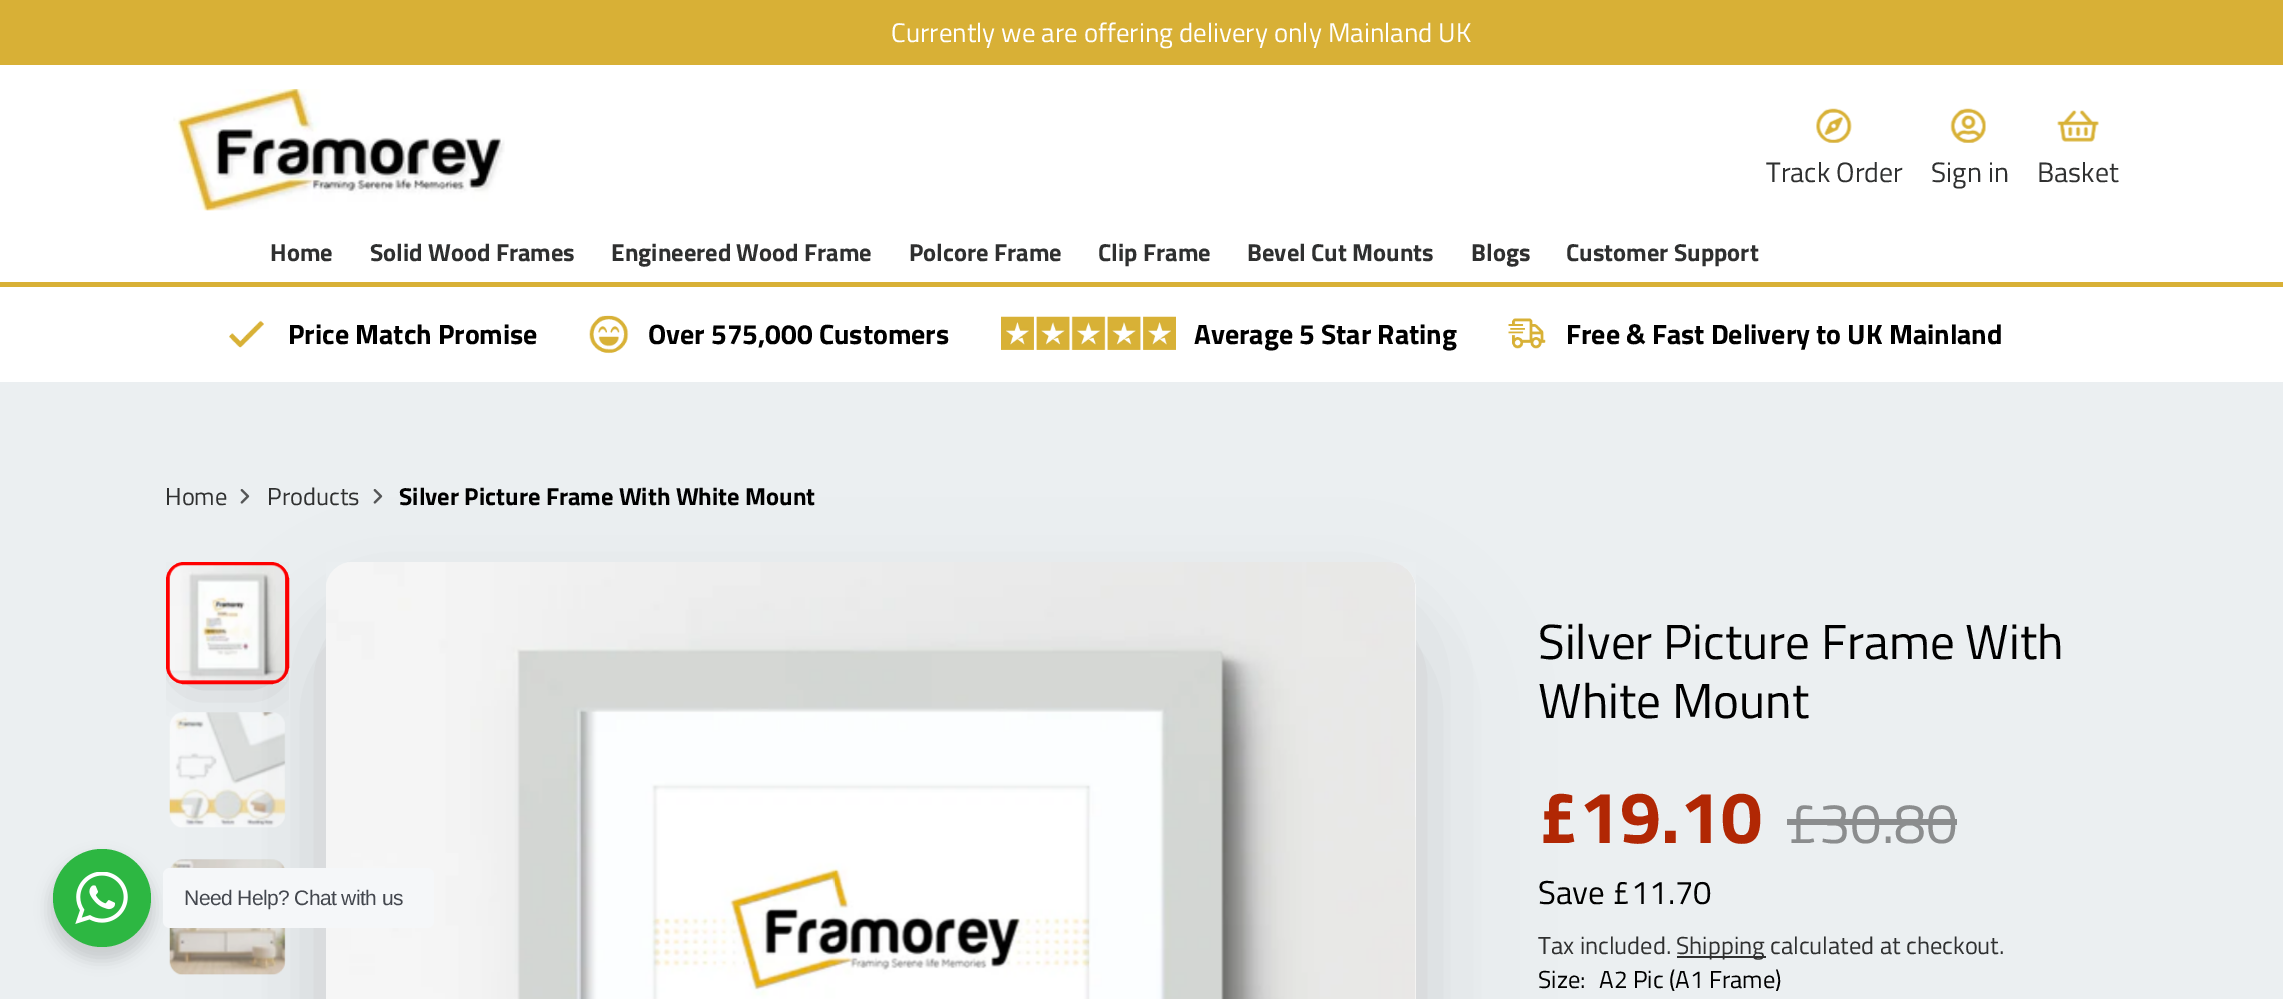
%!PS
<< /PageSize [2283 999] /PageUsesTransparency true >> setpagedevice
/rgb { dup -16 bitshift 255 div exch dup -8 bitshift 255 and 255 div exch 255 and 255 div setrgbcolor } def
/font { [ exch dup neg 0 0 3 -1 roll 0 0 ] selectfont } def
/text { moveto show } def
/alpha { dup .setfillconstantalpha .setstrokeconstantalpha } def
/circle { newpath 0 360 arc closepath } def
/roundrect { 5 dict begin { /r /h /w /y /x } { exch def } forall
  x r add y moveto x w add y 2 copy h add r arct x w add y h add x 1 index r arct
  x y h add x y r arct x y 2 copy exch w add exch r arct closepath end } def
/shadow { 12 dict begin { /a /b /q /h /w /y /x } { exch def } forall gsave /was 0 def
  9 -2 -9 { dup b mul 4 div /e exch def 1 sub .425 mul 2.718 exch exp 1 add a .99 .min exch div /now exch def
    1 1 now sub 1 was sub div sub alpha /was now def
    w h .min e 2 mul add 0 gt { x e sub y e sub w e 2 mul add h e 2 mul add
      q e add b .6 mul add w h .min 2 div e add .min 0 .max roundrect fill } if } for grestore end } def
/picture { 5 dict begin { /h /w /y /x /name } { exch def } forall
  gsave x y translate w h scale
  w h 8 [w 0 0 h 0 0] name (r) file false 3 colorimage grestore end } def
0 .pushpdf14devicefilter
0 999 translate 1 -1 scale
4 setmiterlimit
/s1 { /TitilliumWeb-Regular 26.95 font 16#FFFFFF rgb } def
/s2 { /TitilliumWeb-Regular 28 font 16#2F3030 rgb } def
/s3 { /TitilliumWeb-Bold 24.5 font 16#2F3030 rgb } def
/s4 { /TitilliumWeb-Bold 28 font 16#000000 rgb } def
/s5 { /TitilliumWeb-Regular 24.5 font 16#2F3030 rgb } def
/s6 { /TitilliumWeb-Bold 24.5 font 16#000000 rgb } def
/s7 { /TitilliumWeb-Regular 49.25 font 16#000000 rgb } def
/s8 { /TitilliumWeb-Bold 73.5 font 16#B12704 rgb } def
/s9 { /TitilliumWeb-Regular 56.5 font 16#8B8D8E rgb } def
/s10 { /TitilliumWeb-Regular 33 font 16#000000 rgb } def
/s11 { /TitilliumWeb-Regular 24.5 font 16#000000 rgb } def
16#EBEFF1 rgb
0 0 2283 999 rectfill
16#D8B036 rgb
0 0 2283 65 rectfill
s1
(Currently we are offering delivery only Mainland UK) 891 42 text
0 65 2283 217 rectfill
(pic1.raw) 173 89 332 122 picture
(pic2.raw) 1816 108 36 35 picture
s2
(Track Order) 1766 182 text
(pic3.raw) 1950 108 36 35 picture
(Sign in) 1931 182 text
(pic4.raw) 2057 110 42 32 picture
(Basket) 2037 182 text
16#D8B036 rgb
0 282 2283 5 rectfill
s3
(Home) 270 261 text
(Solid Wood Frames) 370 261 text
(Engineered Wood Frame) 611 261 text
(Polcore Frame) 909 261 text
(Clip Frame) 1098 261 text
(Bevel Cut Mounts) 1247 261 text
(Blogs) 1471 261 text
(Customer Support) 1566 261 text
16#FFFFFF rgb
0 287 2283 95 rectfill
(pic5.raw) 229 320 35 28 picture
s4
(Price Match Promise) 288 344 text
(pic6.raw) 589 315 40 39 picture
(Over 575,000 Customers) 648 344 text
(pic7.raw) 1001 316 175 34 picture
(Average 5 Star Rating) 1194 344 text
(pic8.raw) 1508 318 38 31 picture
(Free & Fast Delivery to UK Mainland) 1566 344 text
s5
(Home) 165 505 text
(pic9.raw) 240 489 10 15 picture
(Products) 267 505 text
(pic9.raw) 373 489 10 15 picture
s6
(Silver Picture Frame With White Mount) 399 505 text
gsave
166 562 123 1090 rectclip
191 599 73 73 0 24.5 0.3 shadow
grestore
16#FF0000 rgb
4 setlinewidth
168 564 119 118 16 roundrect stroke
(pic11.raw) 169 565 117 117 picture
(pic12.raw) 169 712 117 116 picture
(pic13.raw) 169 859 117 116 picture
16#000000 rgb
371 655 999 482 0 46 0.3 shadow
357 669 1029 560 0 76.5 0.1 shadow
16#FFFFFF rgb
326 562 1090 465 28 roundrect fill
(pic10.raw) 326 562 1090 437 picture
s7
(Silver Picture Frame With) 1538 659 text
(White Mount) 1538 718 text
s8
(£19.10) 1538 843 text
s9
(£30.80) 1787 843 text
1787 819 170 6 rectfill
s10
(Save £11.70) 1538 904 text
s5
(Tax included.) 1538 954 text
1677 956 89 2 rectfill
(Shipping calculated at checkout.) 1676 954 text
s11
(Size:) 1538 988 text
(A2 Pic \(A1 Frame\)) 1599 988 text
49 856 105 105 52.5 7 0.14 shadow
16#2DB742 rgb
102 898 49 circle fill
(pic14.raw) 75 872 53 52 picture
16#F5F7F9 rgb
163 868 271 60 7 roundrect fill
/LiberationSans-Regular 21 font
16#43474E rgb
184 905 moveto -0.6 0 (Need Help? Chat with us) ashow
.poppdf14devicefilter showpage
